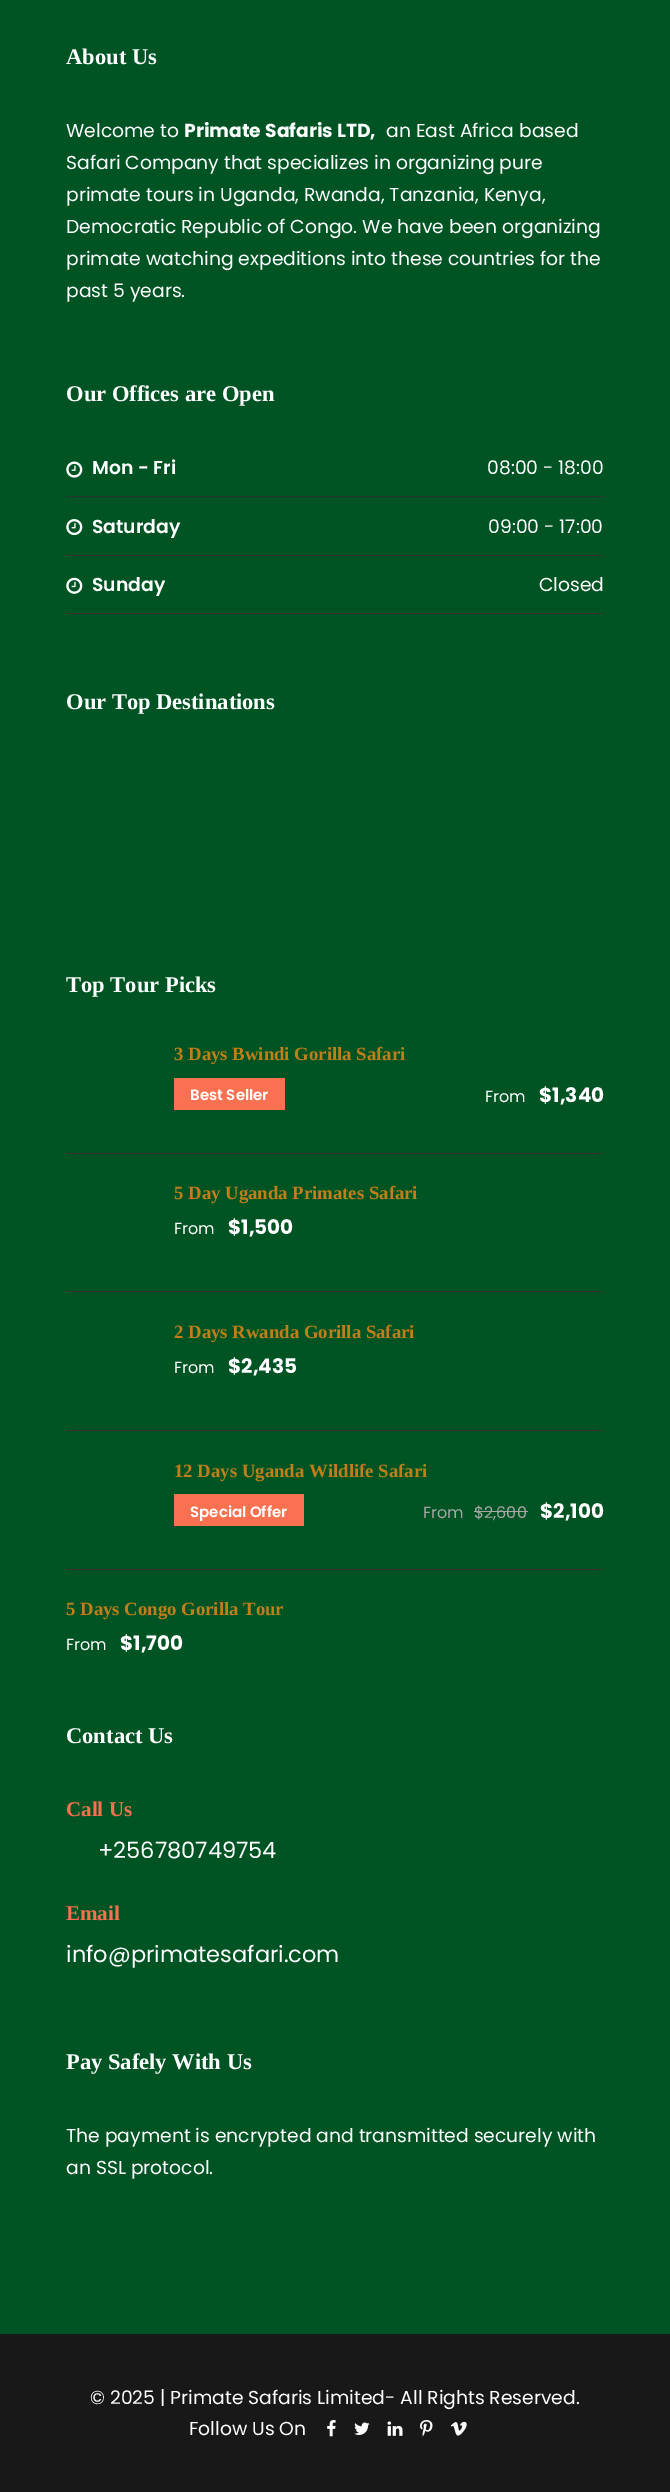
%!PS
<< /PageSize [670 2492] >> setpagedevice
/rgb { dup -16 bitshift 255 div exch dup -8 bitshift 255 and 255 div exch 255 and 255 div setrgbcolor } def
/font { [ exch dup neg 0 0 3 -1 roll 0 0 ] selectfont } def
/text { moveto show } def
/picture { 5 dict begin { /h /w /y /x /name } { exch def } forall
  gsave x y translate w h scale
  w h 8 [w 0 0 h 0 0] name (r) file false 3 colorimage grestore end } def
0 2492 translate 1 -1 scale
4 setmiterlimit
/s1 { /LiberationSerif-Bold 22.5 font 16#FFFFFF rgb } def
/s2 { /Poppins-Regular 18.75 font 16#FFFFFF rgb } def
/s3 { /Poppins-Bold 18.75 font 16#FFFFFF rgb } def
/s4 { /Poppins-SemiBold 18.75 font 16#FFFFFF rgb } def
/s5 { /LiberationSerif-Bold 18.75 font 16#C17F1B rgb } def
/s6 { /Poppins-SemiBold 15 font 16#FFFFFF rgb } def
/s7 { /Poppins-Regular 16 font 16#FFFFFF rgb } def
/s8 { /Poppins-Bold 20 font 16#FFFFFF rgb } def
/s9 { /Poppins-Regular 16 font 16#A7A7A7 rgb } def
/s10 { /LiberationSerif-Bold 21 font 16#F97150 rgb } def
/s11 { /Poppins-Regular 22.5 font 16#FFFFFF rgb } def
16#005424 rgb
0 0 670 2492 rectfill
s1
(About Us) 66 64 text
s2
(Welcome to) 66 137 text
s3
(Primate Safaris LTD,) 184 137 text
s2
(an East Africa based) 386 137 text
(Safari Company that specializes in organizing pure) 66 169 text
(primate tours in Uganda, Rwanda, Tanzania, Kenya,) 66 201 text
(Democratic Republic of Congo. We have been organizing) 66 233 text
(primate watching expeditions into these countries for the) 66 265 text
(past 5 years.) 66 297 text
s1
(Our Offices are Open) 66 401 text
16#303030 rgb
66 496 538 1 rectfill
(pic1.raw) 66 461 17 17 picture
s4
(Mon - Fri) 92 474 text
s2
(08:00 - 18:00) 487 474 text
16#303030 rgb
66 555 538 1 rectfill
(pic2.raw) 66 519 17 17 picture
s4
(Saturday) 92 533 text
s2
(09:00 - 17:00) 488 533 text
16#303030 rgb
66 613 538 1 rectfill
(pic3.raw) 66 577 17 17 picture
s4
(Sunday) 92 591 text
s2
(Closed) 539 591 text
s1
(Our Top Destinations) 66 709 text
(Top Tour Picks) 66 992 text
s5
(3 Days Bwindi Gorilla Safari) 174 1060 text
16#F97150 rgb
174 1078 111 32 rectfill
s6
(Best Seller) 190 1100 text
s7
(From) 485 1102 text
s8
($1,340) 539 1102 text
16#303030 rgb
66 1153 538 1 rectfill
s5
(5 Day Uganda Primates Safari) 174 1199 text
s7
(From) 174 1234 text
s8
($1,500) 228 1234 text
16#303030 rgb
66 1291 538 1 rectfill
s5
(2 Days Rwanda Gorilla Safari) 174 1338 text
s7
(From) 174 1373 text
s8
($2,435) 228 1373 text
16#303030 rgb
66 1430 538 1 rectfill
s5
(12 Days Uganda Wildlife Safari) 174 1477 text
16#F97150 rgb
174 1494 130 32 rectfill
s6
(Special Offer) 190 1517 text
s9
(From) 423 1518 text
($2,600) 474 1518 text
474 1511 54 1 rectfill
s8
($2,100) 540 1518 text
16#303030 rgb
66 1569 538 1 rectfill
s5
(5 Days Congo Gorilla Tour) 66 1615 text
s7
(From) 66 1650 text
s8
($1,700) 120 1650 text
s1
(Contact Us) 66 1743 text
s10
(Call Us) 66 1816 text
s11
(+256780749754) 98 1858 text
s10
(Email) 66 1920 text
s11
(info@primatesafari.com) 66 1962 text
s1
(Pay Safely With Us) 66 2069 text
s2
(The payment is encrypted and transmitted securely with) 66 2142 text
(an SSL protocol.) 66 2174 text
16#181818 rgb
0 2334 670 158 rectfill
s2
(© 2025 | Primate Safaris Limited- All Rights Reserved.) 90 2404 text
(Follow Us On) 189 2435 text
(pic4.raw) 327 2420 9 17 picture
(pic5.raw) 354 2422 16 13 picture
(pic6.raw) 387 2421 16 15 picture
(pic7.raw) 420 2420 13 17 picture
(pic8.raw) 450 2421 17 15 picture
showpage
